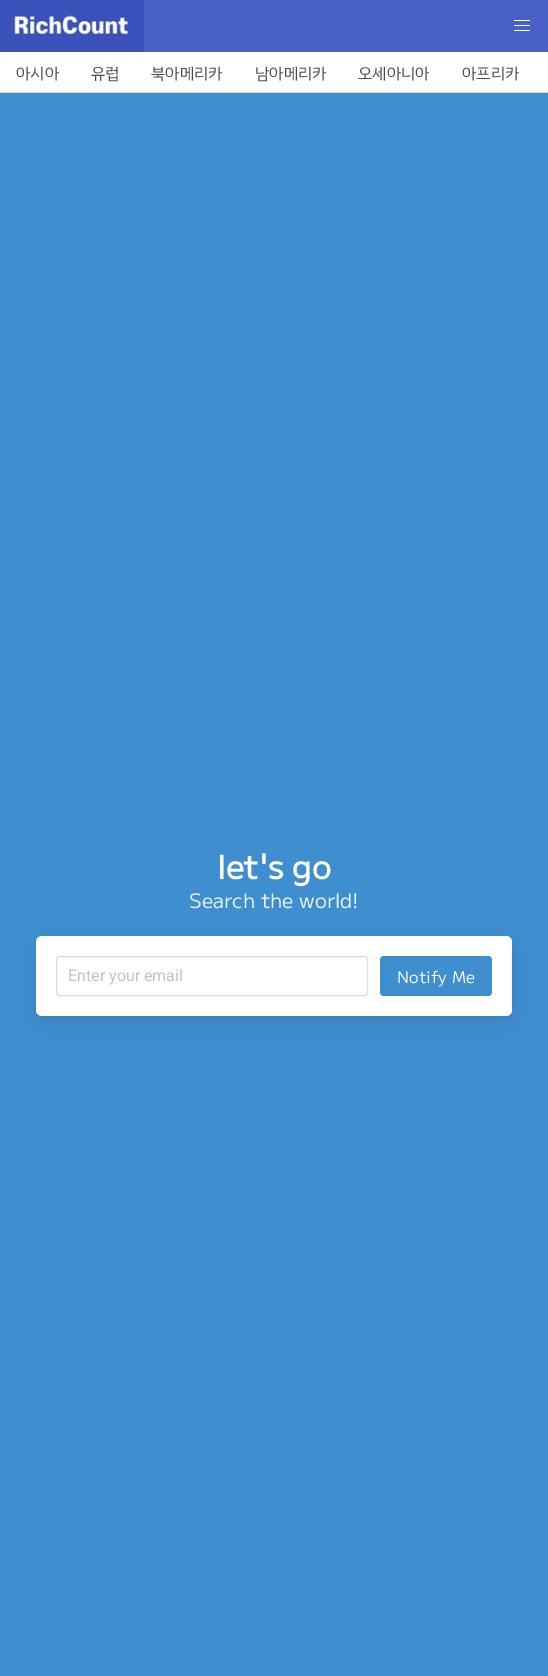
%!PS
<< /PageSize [548 1676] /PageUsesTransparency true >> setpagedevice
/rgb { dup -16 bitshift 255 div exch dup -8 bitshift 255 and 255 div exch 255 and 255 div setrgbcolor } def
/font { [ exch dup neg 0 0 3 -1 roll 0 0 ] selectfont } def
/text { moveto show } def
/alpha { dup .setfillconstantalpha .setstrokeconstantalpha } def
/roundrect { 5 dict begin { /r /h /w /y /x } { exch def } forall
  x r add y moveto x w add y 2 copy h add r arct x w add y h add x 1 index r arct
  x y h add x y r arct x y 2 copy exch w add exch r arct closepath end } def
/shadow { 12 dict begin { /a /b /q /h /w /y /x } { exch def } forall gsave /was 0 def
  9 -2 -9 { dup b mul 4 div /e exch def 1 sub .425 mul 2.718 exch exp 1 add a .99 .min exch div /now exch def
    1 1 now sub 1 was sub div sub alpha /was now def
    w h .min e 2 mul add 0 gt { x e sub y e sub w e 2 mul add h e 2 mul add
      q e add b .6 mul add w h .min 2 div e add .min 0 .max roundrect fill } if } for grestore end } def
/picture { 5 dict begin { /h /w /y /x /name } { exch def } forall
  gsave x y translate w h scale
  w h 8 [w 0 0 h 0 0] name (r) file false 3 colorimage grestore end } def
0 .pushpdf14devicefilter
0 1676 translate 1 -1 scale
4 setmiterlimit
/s1 { /IBMPlexSansKR-Regular 16 font 16#4A4A4A rgb } def
/s2 { /MPLUS2-Bold 32 font 16#FFFFFF rgb } def
/s3 { /MPLUS2-Thin 20 font 16#ECF4FA rgb } def
/s4 { /Roboto-Regular 16 font 16#C3C3C3 rgb } def
/s5 { /MPLUS2-Thin 16 font 16#FFFFFF rgb } def
16#FFFFFF rgb
0 0 548 1676 rectfill
16#485FC7 rgb
144 0 404 52 rectfill
16#3A51BB rgb
0 0 144 52 rectfill
(pic1.raw) 14 15 115 20 picture
16#FFFFFF rgb
514 20 16 1 rectfill
514 25 16 1 rectfill
514 30 16 1 rectfill
16#DBDBDB rgb
0 92 548 1 rectfill
s1
(아시아) 16 79 text
(유럽) 91 79 text
(북아메리카) 151 79 text
(남아메리카) 255 79 text
(오세아니아) 358 79 text
(아프리카) 462 79 text
16#3E8ED0 rgb
0 93 548 1583 rectfill
s2
(let's go) 217 879 text
s3
(Search the world!) 189 908 text
16#3D8BCC rgb
35.5 935.5 477 81 6.5 roundrect stroke
16#0A0A0A rgb
38 946 472 76 4 8 0.1 shadow
16#FFFFFF rgb
36 936 476 80 6 roundrect fill
16#DBDBDB rgb
56.5 956.5 311 39 3.5 roundrect stroke
s4
(Enter your email) 68 981 text
16#3E8ED0 rgb
380 956 112 40 4 roundrect fill
s5
(Notify Me) 397 983 text
.poppdf14devicefilter showpage
